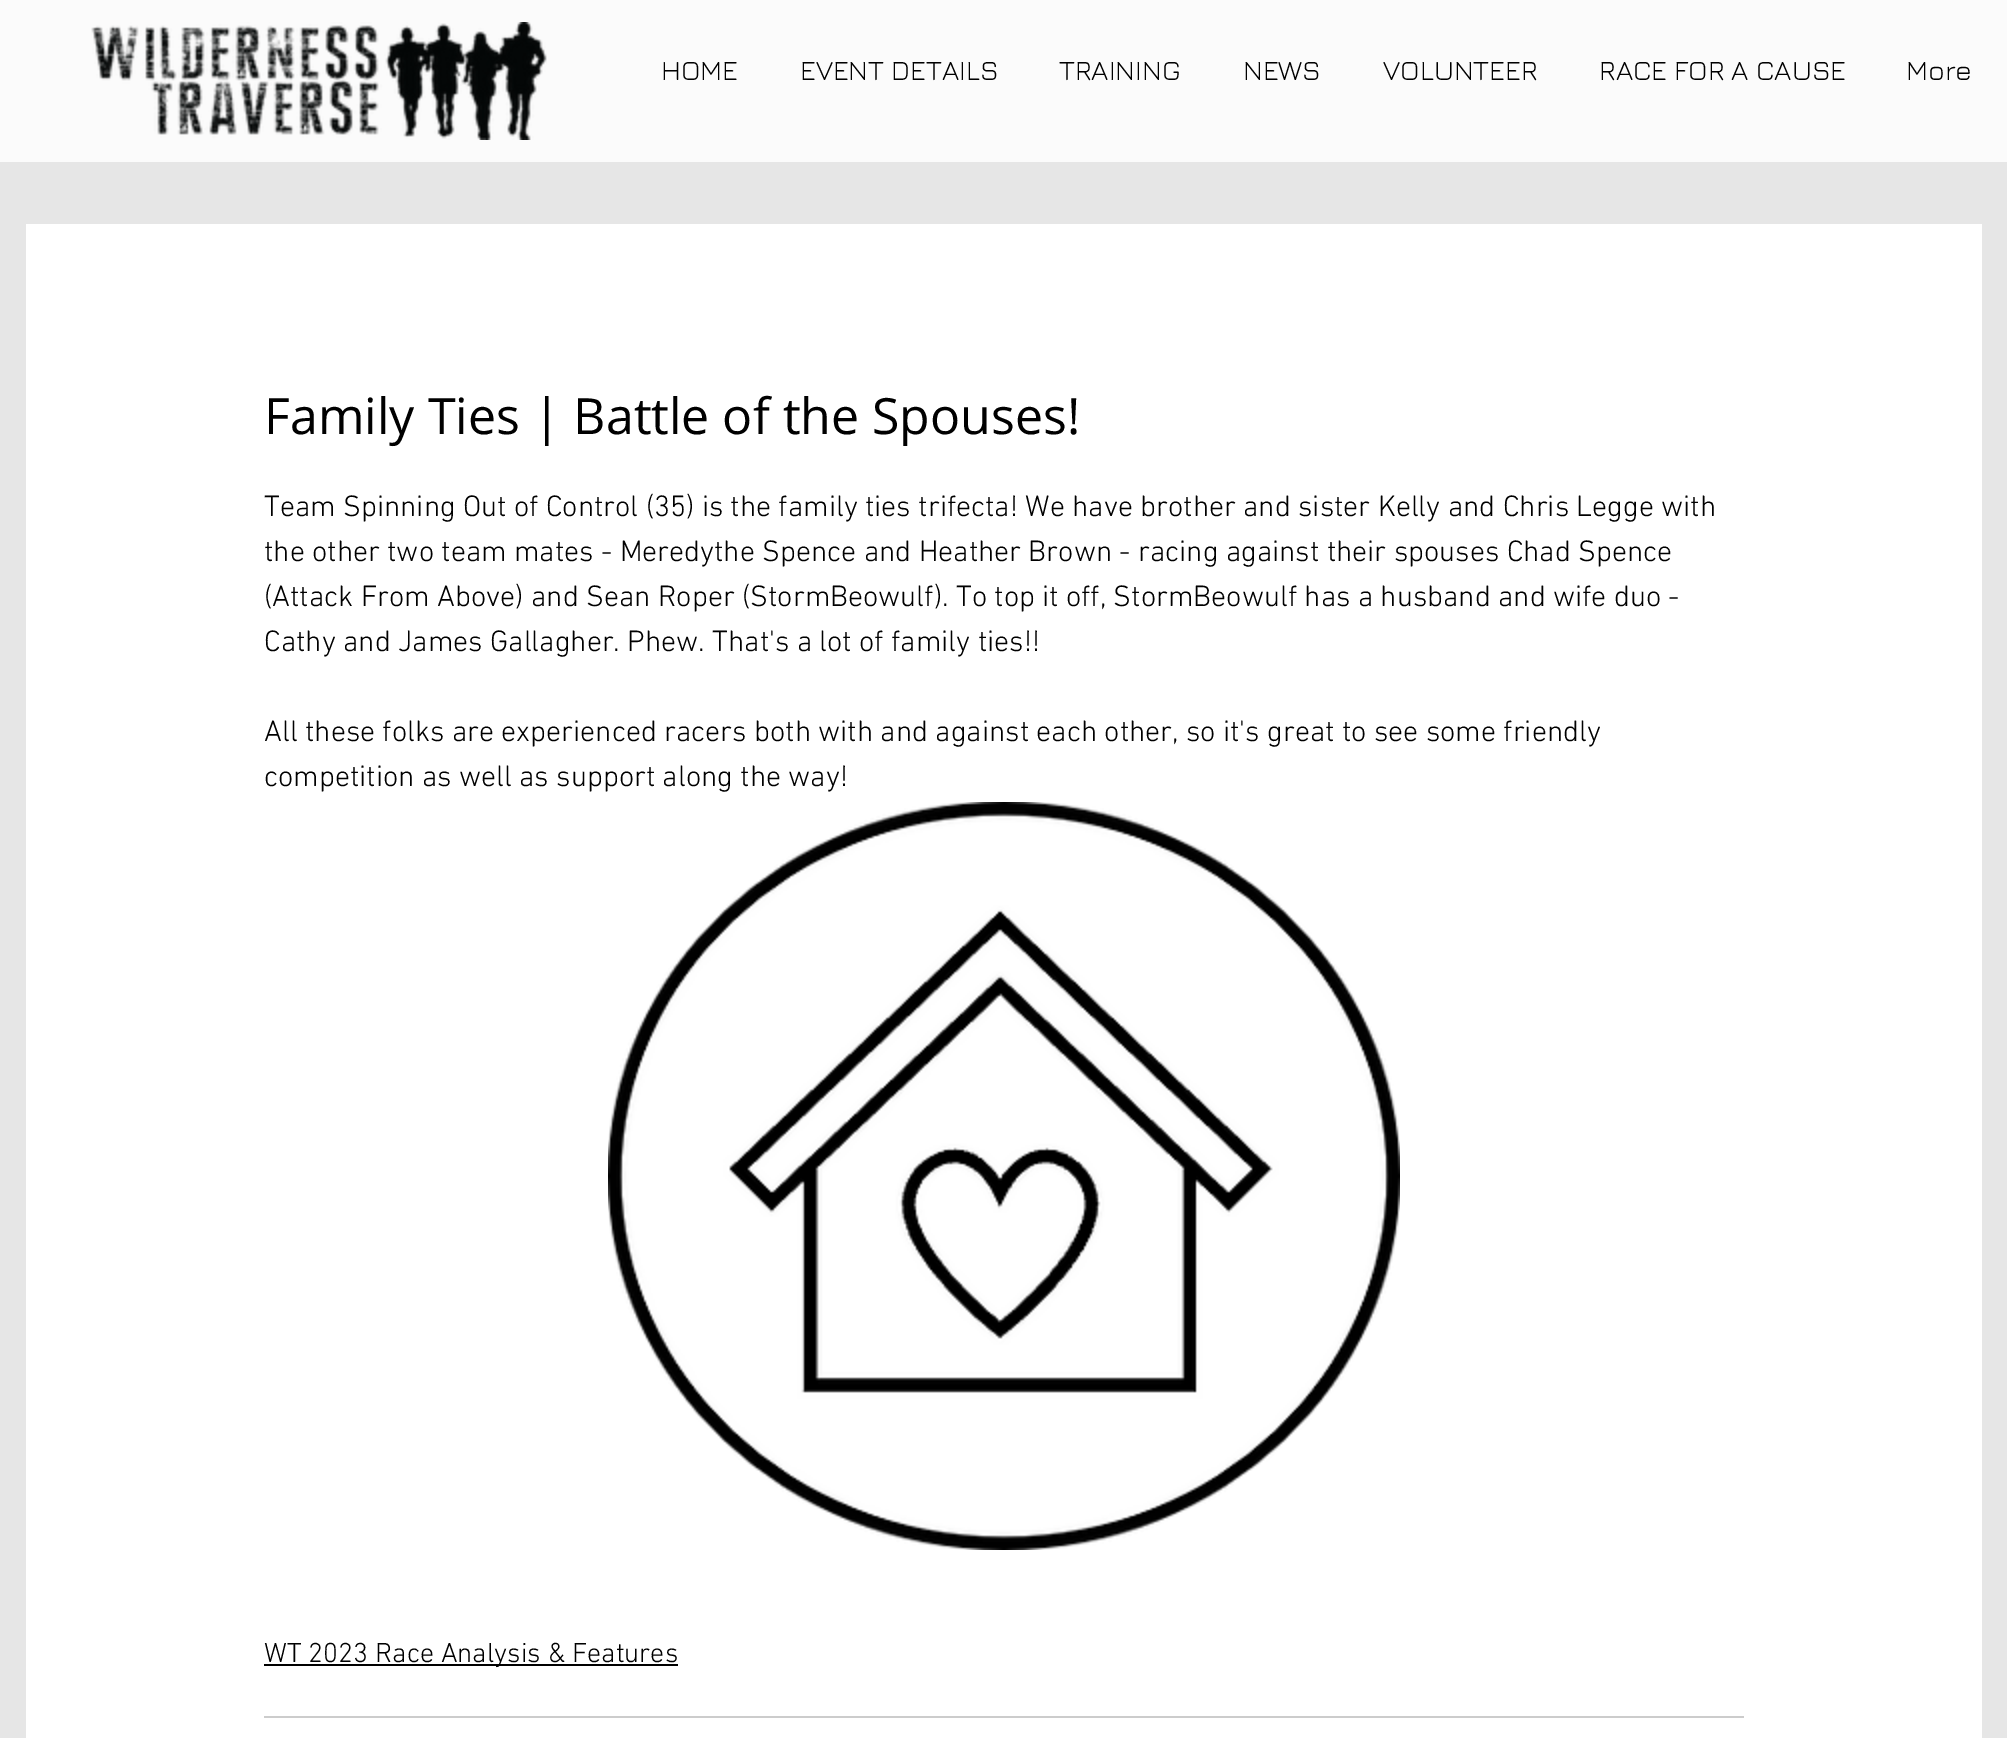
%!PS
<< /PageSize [2007 1738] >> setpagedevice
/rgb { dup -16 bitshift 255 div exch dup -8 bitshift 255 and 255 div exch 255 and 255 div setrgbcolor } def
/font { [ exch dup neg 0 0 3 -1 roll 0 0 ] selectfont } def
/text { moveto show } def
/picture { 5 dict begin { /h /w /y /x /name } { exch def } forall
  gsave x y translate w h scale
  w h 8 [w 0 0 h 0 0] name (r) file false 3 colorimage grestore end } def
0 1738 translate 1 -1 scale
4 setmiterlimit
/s1 { /Jura-Regular 28 font 16#000000 rgb } def
/s2 { /OpenSans-Regular 50 font 16#000000 rgb } def
/s3 { /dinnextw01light-Light 30 font 16#000000 rgb } def
/s4 { /dinnextw01light-Light 28 font 16#000000 rgb } def
16#E6E6E6 rgb
0 0 2007 1738 rectfill
16#FBFBFB rgb
0 0 2007 162 rectfill
(pic1.raw) 91 22 456 118 picture
s1
(HOME) 661 80 text
(EVENT DETAILS) 800 80 text
(TRAINING) 1059 80 text
(NEWS) 1243 80 text
(VOLUNTEER) 1383 80 text
(RACE FOR A CAUSE) 1599 80 text
(More) 1906 80 text
16#FFFFFF rgb
26 224 1956 1514 rectfill
s2
(Family Ties | Battle of the Spouses!) 264 434 text
s3
(Team Spinning Out of Control \(35\) is the family ties trifecta! We have brother and sister Kelly and Chris Legge with) 264 516 text
(the other two team mates - Meredythe Spence and Heather Brown - racing against their spouses Chad Spence) 264 561 text
(\(Attack From Above\) and Sean Roper \(StormBeowulf\). To top it off, StormBeowulf has a husband and wife duo -) 264 606 text
(Cathy and James Gallagher. Phew. That's a lot of family ties!!) 264 651 text
(All these folks are experienced racers both with and against each other, so it's great to see some friendly) 264 741 text
(competition as well as support along the way!) 264 786 text
(pic2.raw) 608 802 792 748 picture
264 1664 414 2 rectfill
s4
(WT 2023 Race Analysis & Features) 264 1662 text
16#CCCCCC rgb
264 1716 1480 2 rectfill
showpage
